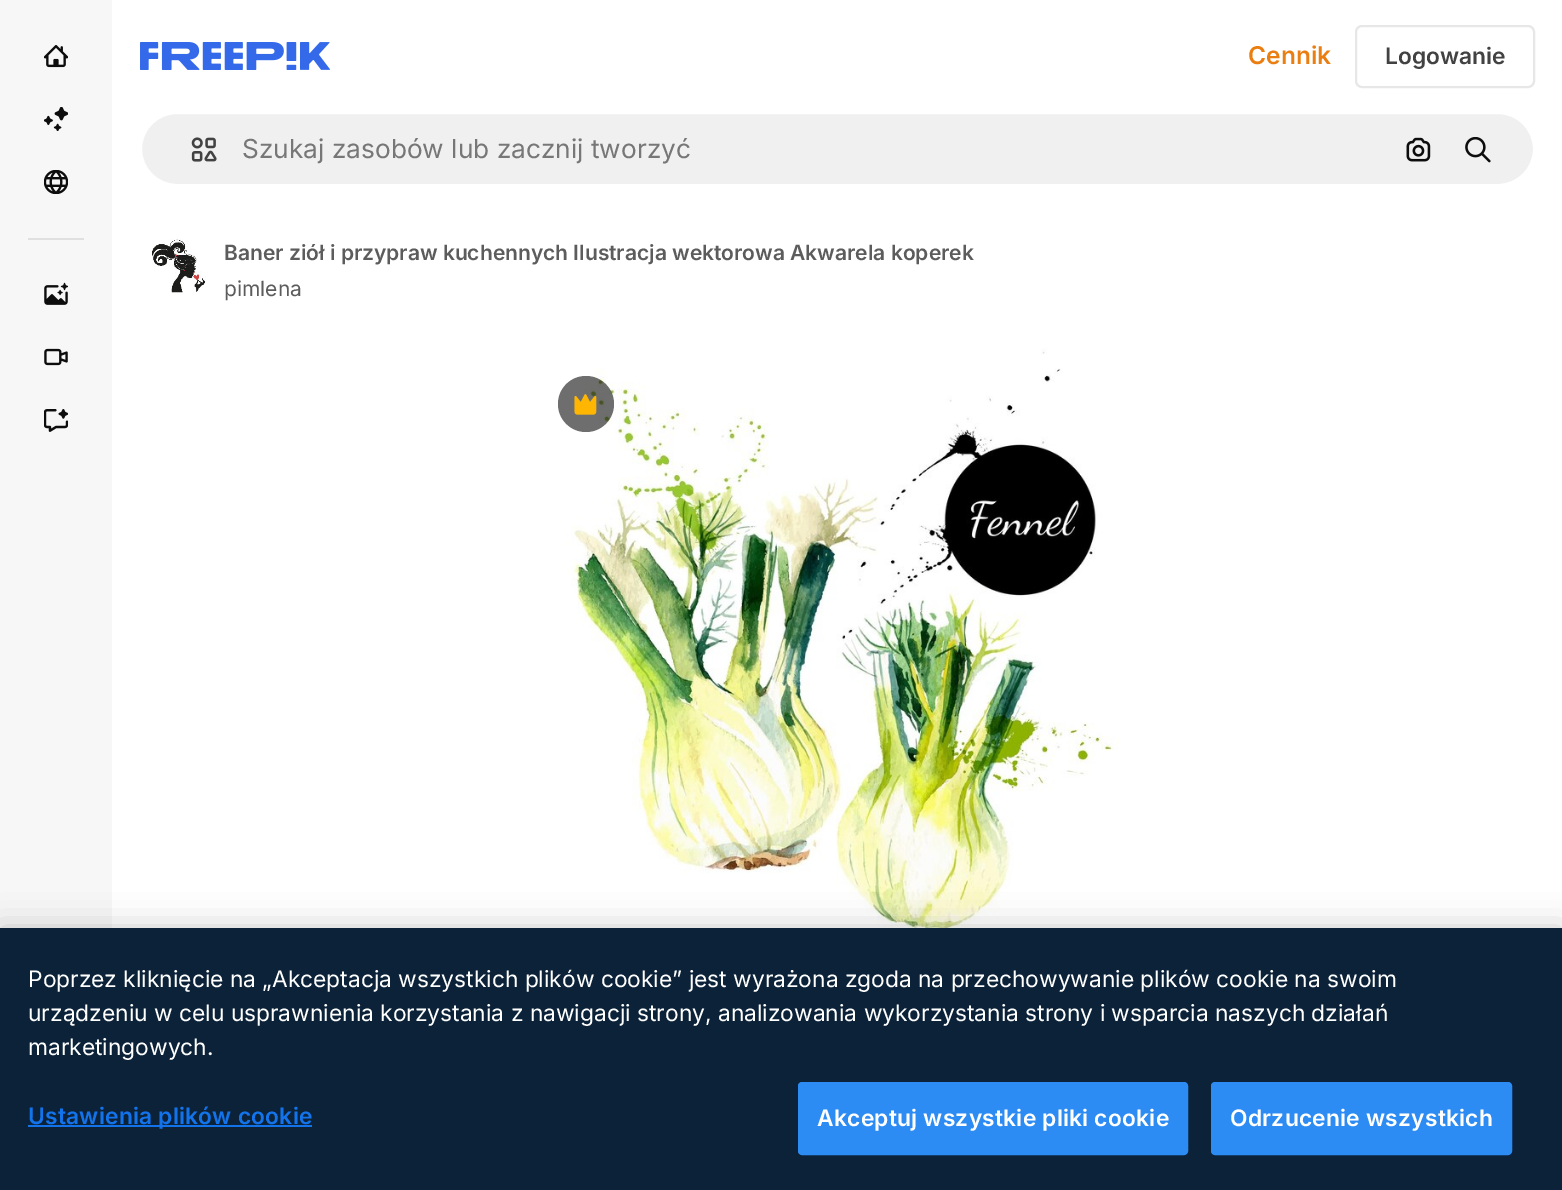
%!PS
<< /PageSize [1562 1190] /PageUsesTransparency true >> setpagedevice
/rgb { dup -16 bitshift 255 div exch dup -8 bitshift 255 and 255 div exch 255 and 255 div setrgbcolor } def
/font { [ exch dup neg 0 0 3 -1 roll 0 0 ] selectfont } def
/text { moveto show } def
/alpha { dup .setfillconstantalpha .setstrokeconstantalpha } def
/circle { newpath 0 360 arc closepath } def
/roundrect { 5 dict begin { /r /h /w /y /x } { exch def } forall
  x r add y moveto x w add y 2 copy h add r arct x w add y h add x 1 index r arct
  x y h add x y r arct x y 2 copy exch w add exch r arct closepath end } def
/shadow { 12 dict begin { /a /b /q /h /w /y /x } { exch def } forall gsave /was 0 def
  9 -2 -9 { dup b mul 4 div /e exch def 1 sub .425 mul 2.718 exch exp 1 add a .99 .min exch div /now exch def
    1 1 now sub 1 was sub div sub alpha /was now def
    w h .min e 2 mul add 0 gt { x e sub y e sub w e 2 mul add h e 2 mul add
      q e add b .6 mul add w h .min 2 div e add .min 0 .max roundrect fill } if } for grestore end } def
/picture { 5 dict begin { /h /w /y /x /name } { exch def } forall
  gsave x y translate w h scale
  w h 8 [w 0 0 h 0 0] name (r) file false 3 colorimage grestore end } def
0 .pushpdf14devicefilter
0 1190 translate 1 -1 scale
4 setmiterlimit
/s1 { /Inter-SemiBold 24.5 font 16#EA7E11 rgb } def
/s2 { /Inter-SemiBold 22.75 font 16#424242 rgb } def
/s3 { /Inter-Regular 26.25 font 16#777777 rgb } def
/s4 { /Inter-SemiBold 21 font 16#5C5C5C rgb } def
/s5 { /Inter-Regular 21 font 16#5C5C5C rgb } def
/s6 { /Inter-Regular 22.75 font 16#FFFFFF rgb } def
16#FFFFFF rgb
0 0 1562 1190 rectfill
16#F7F7F7 rgb
0 0 112 928 rectfill
(pic1.raw) 44 45 24 23 picture
(pic2.raw) 44 107 24 24 picture
(pic3.raw) 44 170 24 24 picture
16#E0E0E0 rgb
28 238 56 2 rectfill
(pic4.raw) 44 282 24 23 picture
(pic5.raw) 44 348 24 18 picture
(pic6.raw) 44 409 24 23 picture
(pic7.raw) 140 42 190 28 picture
s1
(Cennik) 1248 64 text
16#E7E7E7 rgb
2 setlinewidth
1356 26 178 61 6 roundrect stroke
s2
(Logowanie) 1385 64 text
16#F0F0F0 rgb
141 113 1393 72 36 roundrect gsave fill grestore
16#FFFFFF rgb
stroke
(pic8.raw) 191 137 26 25 picture
s3
(Szukaj zasobów lub zacznij tworzyć) 242 158 text
(pic9.raw) 1406 137 25 25 picture
(pic10.raw) 1465 137 26 26 picture
(pic11.raw) 152 239 54 54 picture
s4
(Baner ziół i przypraw kuchennych Ilustracja wektorowa Akwarela koperek) 224 260 text
s5
(pimlena) 224 296 text
(pic12.raw) 567 348 552 580 picture
0.6 alpha
16#0D0D0D rgb
586 404 28 circle fill
1 alpha
(pic13.raw) 574 394 23 21 picture
16#000000 rgb
0 928 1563 262 0 16 0.2 shadow
16#0B2239 rgb
0 928 1562 262 rectfill
s6
(Poprzez kliknięcie na „Akceptacja wszystkich plików cookie” jest wyrażona zgoda na przechowywanie plików cookie na swoim) 28 987 text
(urządzeniu w celu usprawnienia korzystania z nawigacji strony, analizowania wykorzystania strony i wsparcia naszych działań) 28 1021 text
(marketingowych.) 28 1055 text
16#1273EB rgb
28 1125 284 2 rectfill
/Inter-SemiBold 22.75 font
28 1124 moveto 0.25 0 (Ustawienia plików cookie) ashow
16#2C8CF4 rgb
799 1083 388 71 3 roundrect gsave fill grestore
stroke
16#FFFFFF rgb
817 1126 moveto 0.25 0 (Akceptuj wszystkie pliki cookie) ashow
16#2C8CF4 rgb
1212 1083 299 71 3 roundrect gsave fill grestore
stroke
16#FFFFFF rgb
1230 1126 moveto 0.25 0 (Odrzucenie wszystkich) ashow
.poppdf14devicefilter showpage
